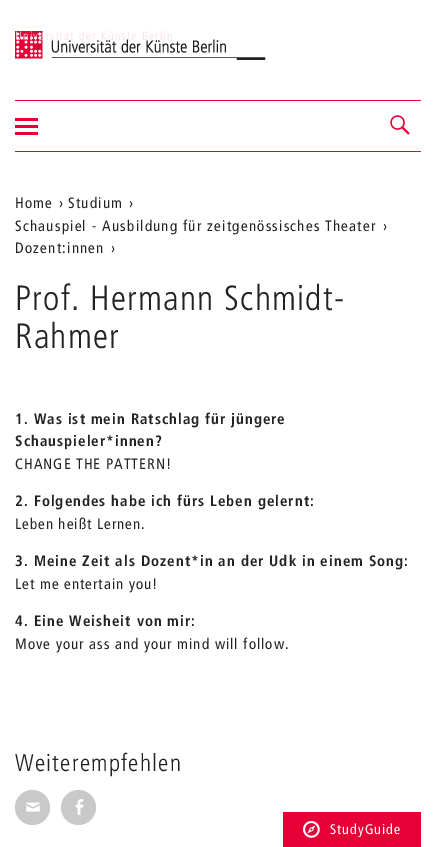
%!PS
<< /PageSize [436 847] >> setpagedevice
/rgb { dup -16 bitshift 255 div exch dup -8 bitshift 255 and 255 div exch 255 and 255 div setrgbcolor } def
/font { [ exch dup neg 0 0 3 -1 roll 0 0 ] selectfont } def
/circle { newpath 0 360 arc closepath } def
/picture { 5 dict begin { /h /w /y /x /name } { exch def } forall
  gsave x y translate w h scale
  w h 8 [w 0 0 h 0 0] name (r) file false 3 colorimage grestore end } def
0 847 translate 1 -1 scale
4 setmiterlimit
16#FFFFFF rgb
0 0 436 847 rectfill
(pic1.raw) 15 31 251 29 picture
/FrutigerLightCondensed-Light 12 font
16#FBDCE3 rgb
15 40 moveto 1.2 0 (Universität der Künste Berlin) ashow
16#E70036 rgb
15 100 406 1 rectfill
15 151 406 1 rectfill
15 118 23 3 rectfill
15 125 23 3 rectfill
15 132 23 3 rectfill
(pic2.raw) 390 115 20 20 picture
/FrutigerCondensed-Regular 15 font
16#222222 rgb
15 208 moveto 1.2 0 (Home) ashow
59 208 moveto 1.2 0 (›) ashow
68 208 moveto 1.2 0 (Studium) ashow
129 208 moveto 1.2 0 (›) ashow
15 231 moveto 1.2 0 (Schauspiel - Ausbildung für zeitgenössisches Theater) ashow
383 231 moveto 1.2 0 (›) ashow
15 253 moveto 1.2 0 (Dozent:innen) ashow
111 253 moveto 1.2 0 (›) ashow
/FrutigerLightCondensed-Light 35 font
15 310 moveto 1.2 0 (Prof. Hermann Schmidt-) ashow
15 348 moveto 1.2 0 (Rahmer) ashow
/FrutigerCondensed-Bold 15 font
15 424 moveto 1 0 (1. Was ist mein Ratschlag für jüngere) ashow
15 446 moveto 1 0 (Schauspieler*innen?) ashow
/FrutigerCondensed-Regular 15 font
15 469 moveto 1 0 (CHANGE THE PATTERN!) ashow
/FrutigerCondensed-Bold 15 font
15 506 moveto 1 0 (2. Folgendes habe ich fürs Leben gelernt:) ashow
/FrutigerCondensed-Regular 15 font
15 529 moveto 1 0 (Leben heißt Lernen.) ashow
/FrutigerCondensed-Bold 15 font
15 566 moveto 1 0 (3. Meine Zeit als Dozent*in an der Udk in einem Song:) ashow
/FrutigerCondensed-Regular 15 font
15 589 moveto 1 0 (Let me entertain you!) ashow
/FrutigerCondensed-Bold 15 font
15 626 moveto 1 0 (4. Eine Weisheit von mir:) ashow
/FrutigerCondensed-Regular 15 font
15 649 moveto 1 0 (Move your ass and your mind will follow.) ashow
/FrutigerLightCondensed-Light 24 font
15 771 moveto 1.2 0 (Weiterempfehlen) ashow
16#C9C9C9 rgb
32.5 807.5 17.5 circle fill
(pic3.raw) 26 802 14 10 picture
78.5 807.5 17.5 circle fill
(pic4.raw) 75 799 9 16 picture
16#E70036 rgb
283 812 138 35 rectfill
(pic5.raw) 303 821 17 17 picture
/FrutigerCondensed-Regular 14 font
16#FFFFFF rgb
330 834 moveto 1 0 (StudyGuide) ashow
showpage
